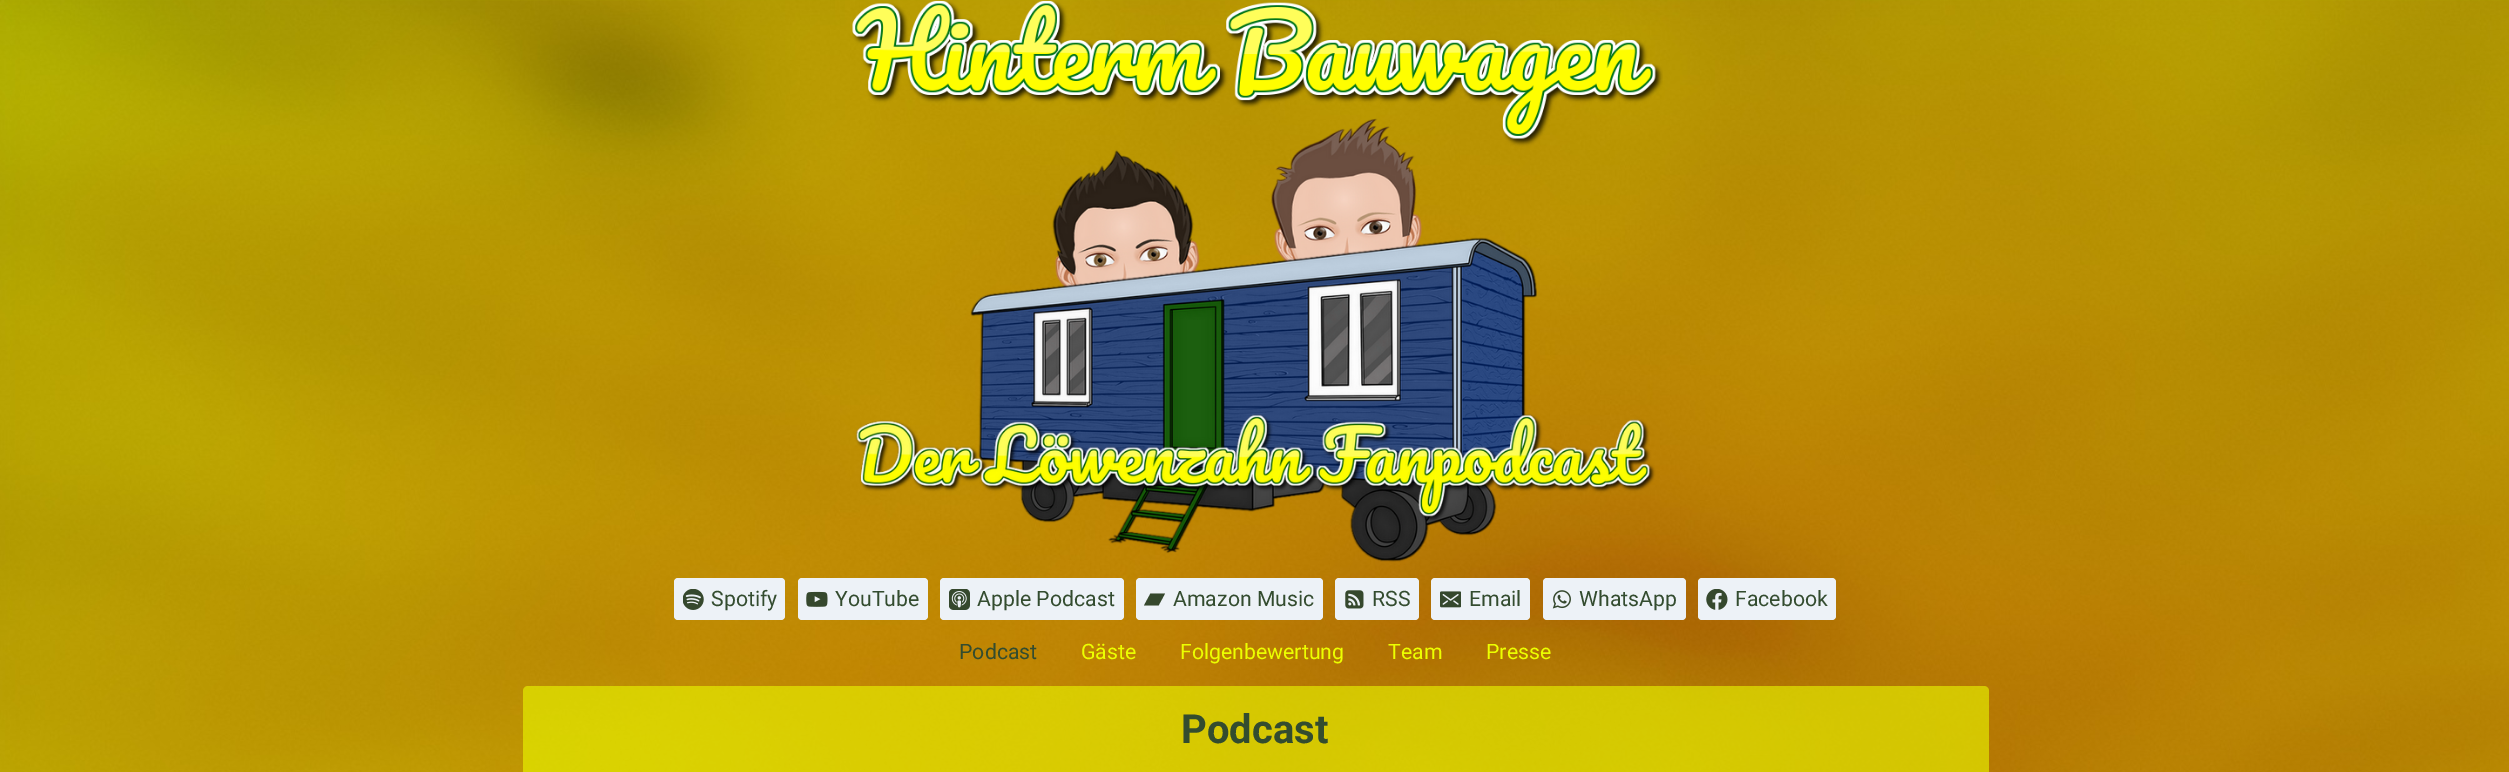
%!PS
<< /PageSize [2509 772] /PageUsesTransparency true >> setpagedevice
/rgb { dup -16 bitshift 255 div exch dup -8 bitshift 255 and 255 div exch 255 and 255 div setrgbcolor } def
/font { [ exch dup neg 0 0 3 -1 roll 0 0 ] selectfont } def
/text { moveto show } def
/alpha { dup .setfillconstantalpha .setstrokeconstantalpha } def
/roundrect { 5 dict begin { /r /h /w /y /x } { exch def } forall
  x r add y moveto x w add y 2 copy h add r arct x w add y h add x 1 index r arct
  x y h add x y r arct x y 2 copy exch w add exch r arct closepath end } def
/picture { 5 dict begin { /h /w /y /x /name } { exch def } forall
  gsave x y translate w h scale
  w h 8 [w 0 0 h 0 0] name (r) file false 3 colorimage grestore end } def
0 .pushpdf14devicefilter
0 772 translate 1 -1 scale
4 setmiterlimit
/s1 { /Roboto-Regular 21.25 font 16#334C2F rgb } def
/s2 { /Roboto-Regular 21.25 font 16#ECFF00 rgb } def
/s3 { /Roboto-Bold 40 font 16#334C2F rgb } def
16#FFFFFF rgb
0 0 2509 772 rectfill
(pic1.raw) 0 0 2509 772 picture
(pic2.raw) 852 0 811 562 picture
16#EDF2F7 rgb
674 578 111 42 4 roundrect fill
(pic3.raw) 683 589 21 21 picture
s1
(Spotify) 711 606 text
16#EDF2F7 rgb
798 578 130 42 4 roundrect fill
(pic4.raw) 806 591 22 16 picture
s1
(YouTube) 835 606 text
16#EDF2F7 rgb
940 578 184 42 4 roundrect fill
(pic5.raw) 949 589 21 21 picture
s1
(Apple Podcast) 977 606 text
16#EDF2F7 rgb
1136 578 187 42 4 roundrect fill
16#35482D rgb
1144 605.5 moveto 1150.5 593.5 lineto 1165 593.5 lineto 1158.5 605.5 lineto closepath fill
s1
(Amazon Music) 1173 606 text
16#EDF2F7 rgb
1335 578 84 42 4 roundrect fill
(pic6.raw) 1345 590 19 19 picture
s1
(RSS) 1372 606 text
16#EDF2F7 rgb
1431 578 99 42 4 roundrect fill
(pic7.raw) 1440 591 21 17 picture
s1
(Email) 1469 606 text
16#EDF2F7 rgb
1543 578 143 42 4 roundrect fill
(pic8.raw) 1552 590 19 19 picture
s1
(WhatsApp) 1579 606 text
16#EDF2F7 rgb
1698 578 138 42 4 roundrect fill
(pic9.raw) 1706 589 22 21 picture
s1
(Facebook) 1735 606 text
(Podcast) 959 659 text
s2
(Gäste) 1081 659 text
(Folgenbewertung) 1180 659 text
(Team) 1388 659 text
(Presse) 1486 659 text
0.58 alpha
523 686 1466 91 5 roundrect fill
1 alpha
s3
(Podcast) 1181 743 text
.poppdf14devicefilter showpage
